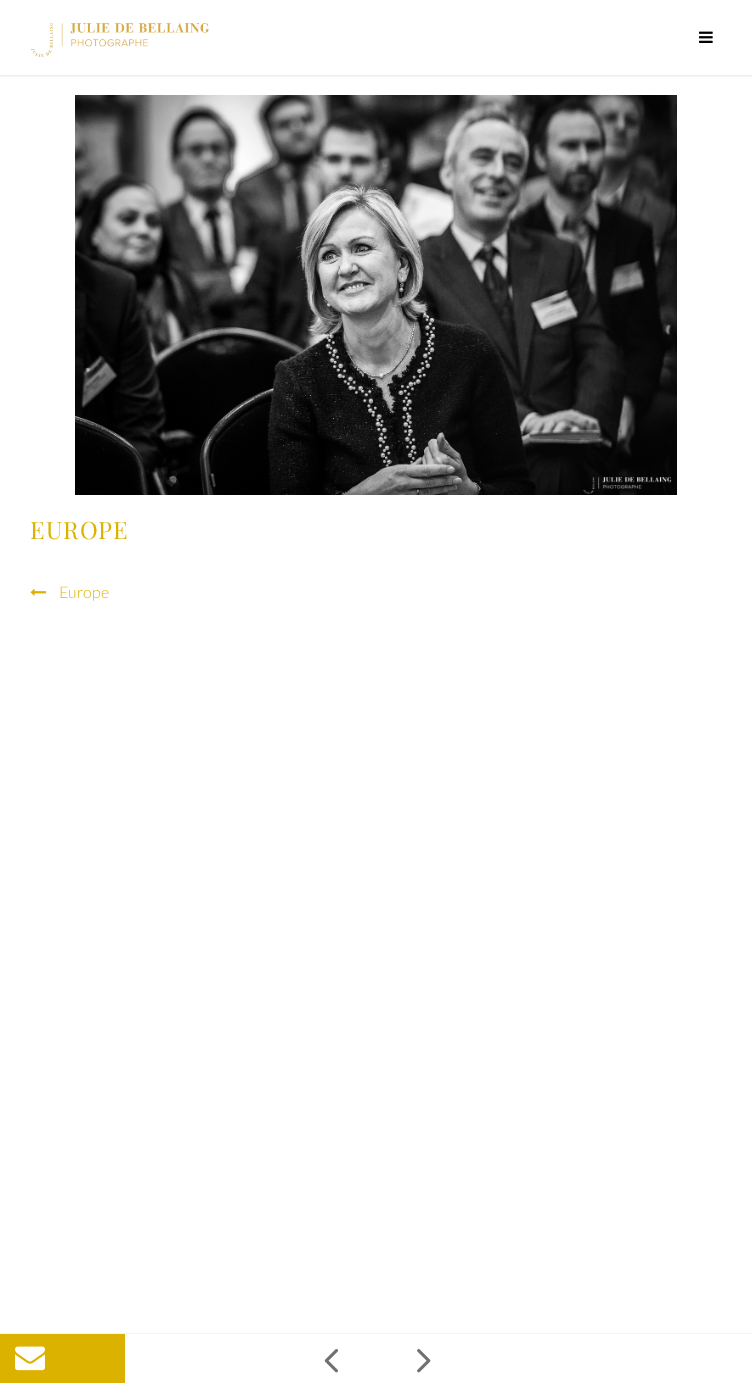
%!PS
<< /PageSize [752 1383] /PageUsesTransparency true >> setpagedevice
/rgb { dup -16 bitshift 255 div exch dup -8 bitshift 255 and 255 div exch 255 and 255 div setrgbcolor } def
/font { [ exch dup neg 0 0 3 -1 roll 0 0 ] selectfont } def
/text { moveto show } def
/alpha { dup .setfillconstantalpha .setstrokeconstantalpha } def
/roundrect { 5 dict begin { /r /h /w /y /x } { exch def } forall
  x r add y moveto x w add y 2 copy h add r arct x w add y h add x 1 index r arct
  x y h add x y r arct x y 2 copy exch w add exch r arct closepath end } def
/shadow { 12 dict begin { /a /b /q /h /w /y /x } { exch def } forall gsave /was 0 def
  9 -2 -9 { dup b mul 4 div /e exch def 1 sub .425 mul 2.718 exch exp 1 add a .99 .min exch div /now exch def
    1 1 now sub 1 was sub div sub alpha /was now def
    w h .min e 2 mul add 0 gt { x e sub y e sub w e 2 mul add h e 2 mul add
      q e add b .6 mul add w h .min 2 div e add .min 0 .max roundrect fill } if } for grestore end } def
/picture { 5 dict begin { /h /w /y /x /name } { exch def } forall
  gsave x y translate w h scale
  w h 8 [w 0 0 h 0 0] name (r) file false 3 colorimage grestore end } def
0 .pushpdf14devicefilter
0 1383 translate 1 -1 scale
4 setmiterlimit
/s1 { /Lato-Light 16 font 16#DBB200 rgb } def
16#FFFFFF rgb
0 0 752 1383 rectfill
gsave
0 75 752 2 rectclip
16#000000 rgb
0 1 752 75 0 1 0.1 shadow
grestore
(pic1.raw) 31 22 178 36 picture
(pic2.raw) 699 31 14 12 picture
(pic3.raw) 75 95 602 400 picture
(pic4.raw) 324 1349 14 24 picture
(pic5.raw) 417 1349 14 24 picture
/PlayfairDisplay-Regular 24 font
16#DBB200 rgb
30 539 moveto 1 0 (EUROPE) ashow
(pic6.raw) 30 588 16 8 picture
s1
(Europe) 59 598 text
16#F4F4F4 rgb
0 1333 752 1 rectfill
16#DBB200 rgb
0 1334 125 49 rectfill
(pic7.raw) 15 1346 30 25 picture
.poppdf14devicefilter showpage
